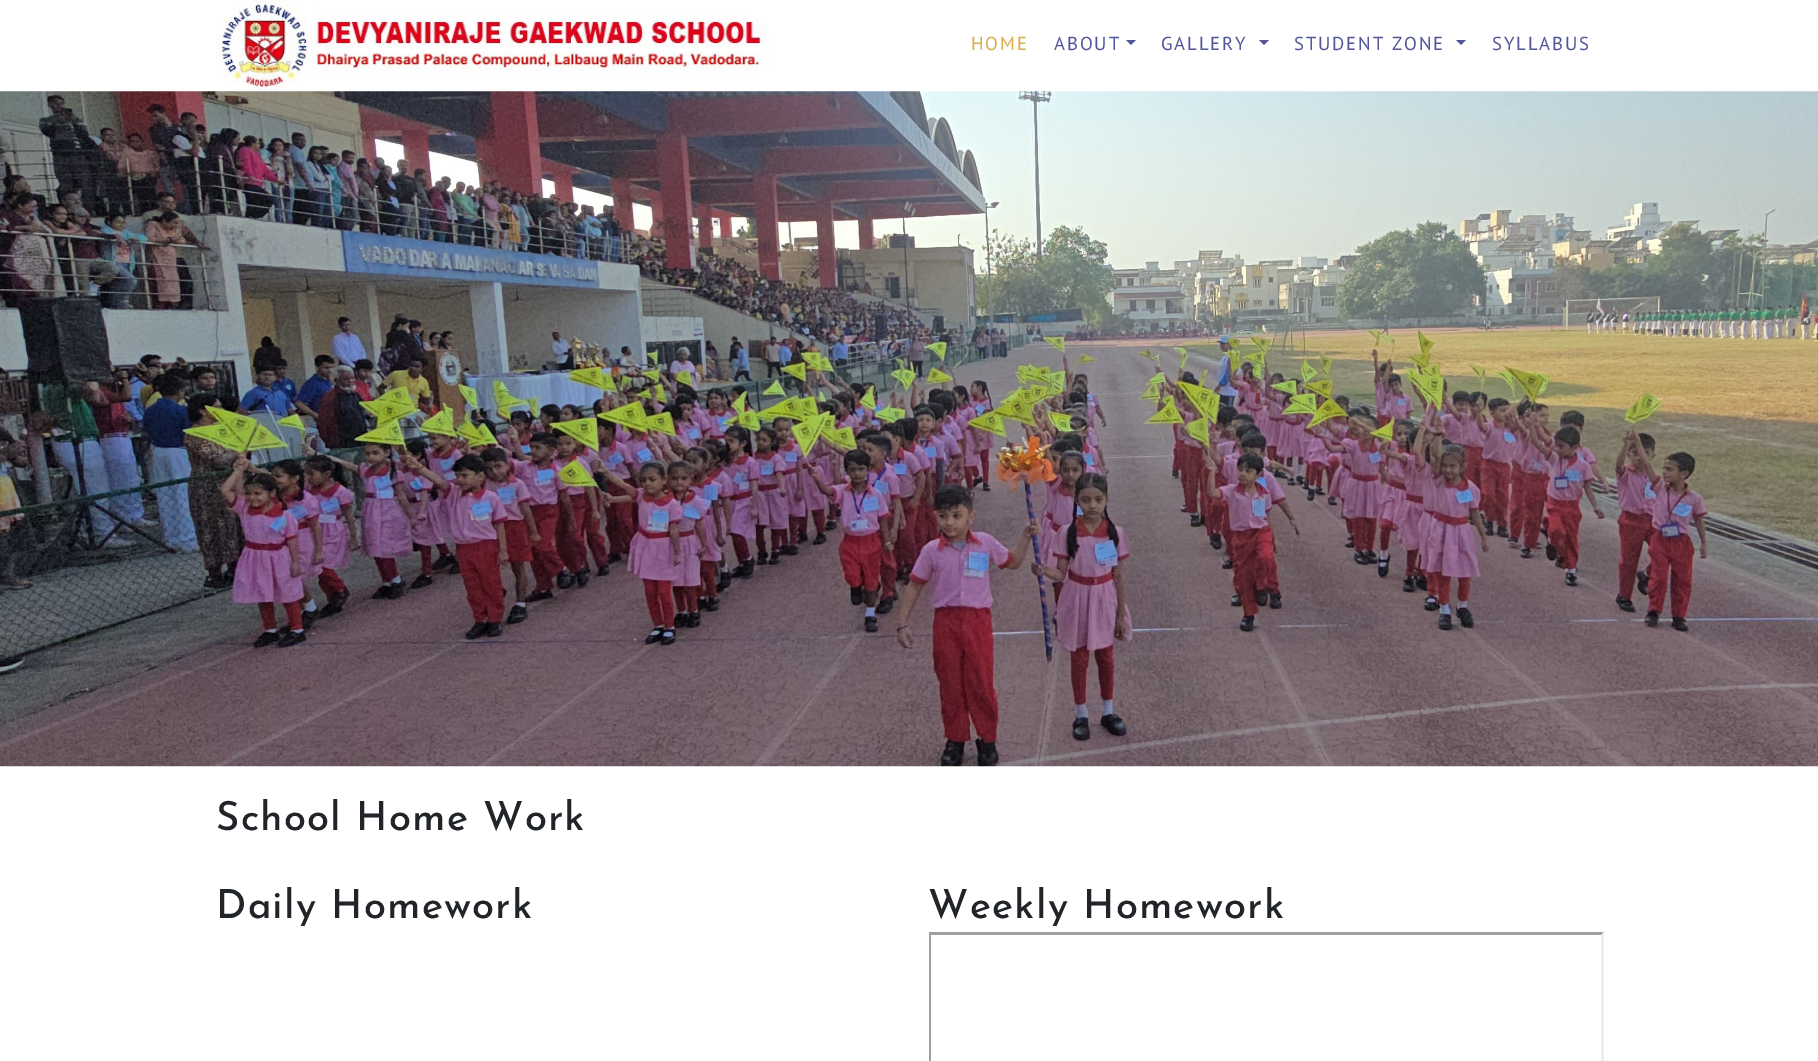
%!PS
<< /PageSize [1818 1061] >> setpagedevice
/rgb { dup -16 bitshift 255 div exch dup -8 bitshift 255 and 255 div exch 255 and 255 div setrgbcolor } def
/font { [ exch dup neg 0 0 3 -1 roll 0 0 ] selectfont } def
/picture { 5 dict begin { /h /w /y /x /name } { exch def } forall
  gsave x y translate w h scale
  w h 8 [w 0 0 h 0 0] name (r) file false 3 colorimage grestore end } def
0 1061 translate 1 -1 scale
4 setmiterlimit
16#FFFFFF rgb
0 0 1818 1061 rectfill
(pic1.raw) 216 0 555 91 picture
/PTSans-Regular 18.75 font
16#D9AD47 rgb
971 50 moveto 1.9 0 (HOME) ashow
16#535699 rgb
1054 50 moveto 1.9 0 (ABOUT) ashow
1126 40 moveto 1136 40 lineto 1131 45 lineto closepath fill
1161 50 moveto 1.9 0 (GALLERY) ashow
1259 40 moveto 1269 40 lineto 1264 45 lineto closepath fill
1294 50 moveto 1.9 0 (STUDENT ZONE) ashow
1456 40 moveto 1466 40 lineto 1461 45 lineto closepath fill
1492 50 moveto 1.9 0 (SYLLABUS) ashow
(pic2.raw) 0 91 1818 676 picture
/JosefinSans-Medium 40 font
16#212529 rgb
216 830 moveto 1.25 0 (School Home Work) ashow
216 918 moveto 1.25 0 (Daily Homework) ashow
928 918 moveto 1.25 0 (Weekly Homework) ashow
16#9F9F9F rgb
929 932 moveto 1604 932 lineto 1601 935 lineto 931 935 lineto closepath fill
929 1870 moveto 929 932 lineto 931 935 lineto 931 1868 lineto closepath fill
16#EEEEEE rgb
1604 932 moveto 1604 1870 lineto 1601 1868 lineto 1601 935 lineto closepath fill
showpage
